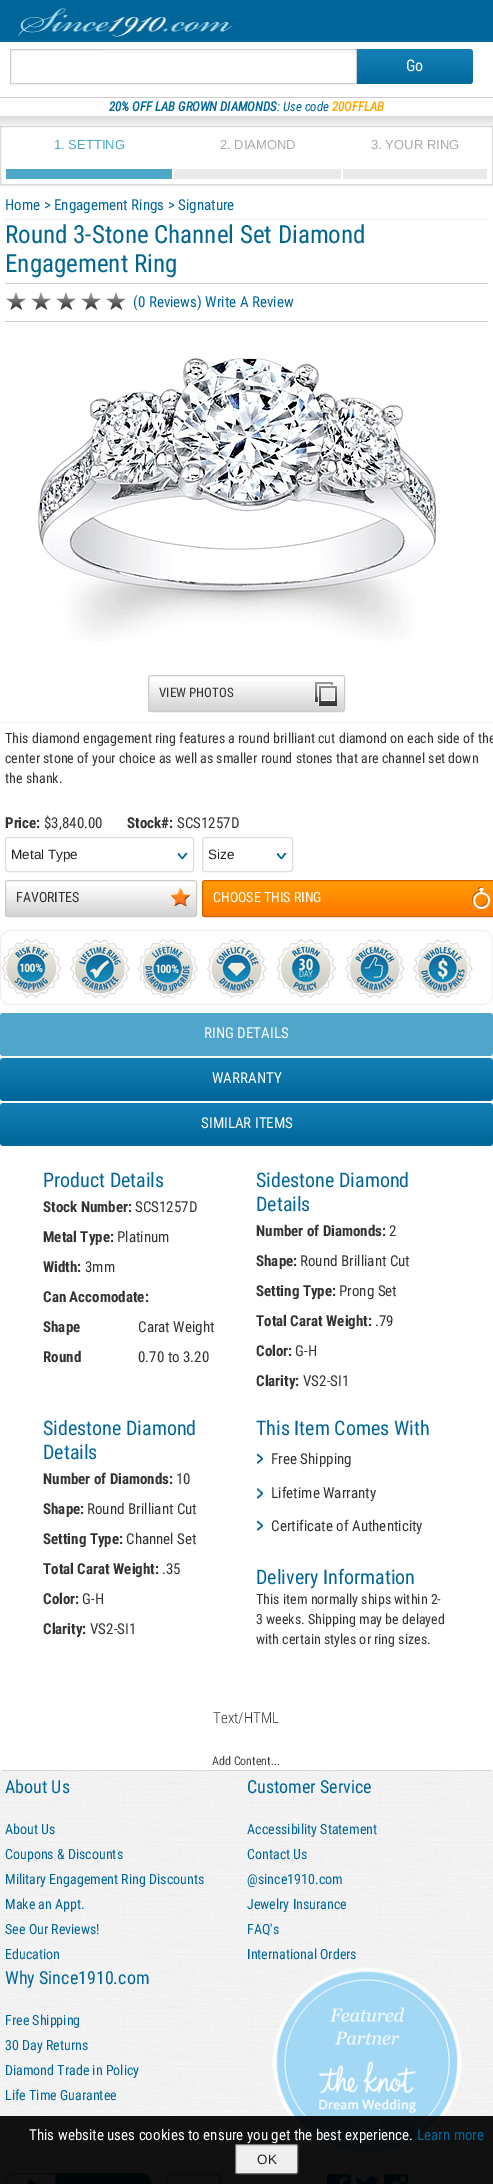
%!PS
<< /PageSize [493 2184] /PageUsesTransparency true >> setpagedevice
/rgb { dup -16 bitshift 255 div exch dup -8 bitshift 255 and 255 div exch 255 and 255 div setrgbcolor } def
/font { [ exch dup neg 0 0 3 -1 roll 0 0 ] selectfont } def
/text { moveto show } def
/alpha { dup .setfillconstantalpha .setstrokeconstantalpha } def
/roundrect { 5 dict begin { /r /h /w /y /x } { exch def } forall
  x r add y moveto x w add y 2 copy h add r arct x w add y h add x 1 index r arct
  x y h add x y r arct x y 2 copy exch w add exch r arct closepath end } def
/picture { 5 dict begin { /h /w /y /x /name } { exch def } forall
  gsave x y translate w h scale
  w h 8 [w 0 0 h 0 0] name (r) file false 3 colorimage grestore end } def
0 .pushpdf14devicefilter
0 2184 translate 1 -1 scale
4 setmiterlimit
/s1 { /RobotoCondensed-Regular 16 font 16#FFFFFF rgb } def
/s2 { /RobotoCondensed-BoldItalic 13 font 16#006699 rgb } def
/s3 { /RobotoCondensed-Italic 13 font 16#006699 rgb } def
/s4 { /RobotoCondensed-BoldItalic 13 font 16#FFA500 rgb } def
/s5 { /LiberationSans-Regular 13 font 16#4DA8C7 rgb } def
/s6 { /LiberationSans-Regular 13 font 16#AAAAAA rgb } def
/s7 { /RobotoCondensed-Regular 15 font 16#00658F rgb } def
/s8 { /RobotoCondensed-Regular 15 font 16#006699 rgb } def
/s9 { /RobotoCondensed-Regular 25 font 16#00658F rgb } def
/s10 { /RobotoCondensed-Regular 13 font 16#333333 rgb } def
/s11 { /RobotoCondensed-Regular 14 font 16#333333 rgb } def
/s12 { /RobotoCondensed-Bold 15 font 16#333333 rgb } def
/s13 { /RobotoCondensed-Regular 15 font 16#333333 rgb } def
/s14 { /LiberationSans-Regular 13.5 font 16#222222 rgb } def
/s15 { /RobotoCondensed-Regular 14 font 16#FFFFFF rgb } def
/s16 { /RobotoCondensed-Regular 15 font 16#FFFFFF rgb } def
/s17 { /RobotoCondensed-Regular 20 font 16#006699 rgb } def
/s18 { /RobotoCondensed-Light 15 font 16#333333 rgb } def
/s19 { /RobotoCondensed-Regular 12 font 16#444444 rgb } def
/s20 { /RobotoCondensed-Regular 18 font 16#006699 rgb } def
/s21 { /RobotoCondensed-Regular 14 font 16#006699 rgb } def
16#FFFFFF rgb
0 0 493 2184 rectfill
16#006699 rgb
0 0 493 42 rectfill
(pic1.raw) 18 8 214 29 picture
16#CCCCCC rgb
10.5 49.5 346 34 rectstroke
16#F6F6F6 rgb
103 50 253 3 rectfill
(pic2.raw) 357 49 116 35 picture
s1
(Go) 406 71 text
16#CCCCCC rgb
0 97 493 1 rectfill
s2
(20% OFF LAB GROWN DIAMONDS) 109 111 text
s3
(: Use code) 277 111 text
s4
(20OFFLAB) 332 111 text
(pic3.raw) 0 116 493 10 picture
16#F4F4F4 rgb
0 185 493 2 rectfill
16#D9D9D9 rgb
0.5 126.5 492 58 rectstroke
16#4DA8C7 rgb
6 169 166 10 rectfill
s5
(1. SETTING) 54 149 text
16#EAEAEA rgb
174 169 167 10 rectfill
s6
(2. DIAMOND) 220 149 text
16#EAEAEA rgb
343 169 144 10 rectfill
s6
(3. YOUR RING) 371 149 text
16#EEEEEE rgb
5 219 483 1 rectfill
s7
(Home >) 5 210 text
s8
(Engagement Rings) 54 210 text
s7
(>) 168 210 text
s8
(Signature) 178 210 text
s9
(Round 3-Stone Channel Set Diamond) 5 243 text
(Engagement Ring) 5 272 text
16#CCCCCC rgb
5 283 483 1 rectfill
5 321 483 1 rectfill
(pic4.raw) 6 292 119 18 picture
s8
(\(0 Reviews\) Write A Review) 133 307 text
16#EEEEEE rgb
0 722 493 1 rectfill
(pic5.raw) 38 357 399 284 picture
(pic6.raw) 148 681 197 31 picture
16#CCCCCC rgb
148.5 675.5 196 36 2.5 roundrect stroke
s10
(VIEW PHOTOS) 159 697 text
(pic7.raw) 314 681 23 25 picture
s11
(This diamond engagement ring features a round brilliant cut diamond on each side of the) 5 743 text
(center stone of your choice as well as smaller round stones that are channel set down) 5 763 text
(the shank.) 5 783 text
s12
(Price:) 5 828 text
s13
($3,840.00) 44 828 text
s12
(Stock#:) 127 828 text
s13
(SCS1257D) 177 828 text
(pic8.raw) 178 853 11 8 picture
16#DDDDDD rgb
5.5 837.5 188 34 2.5 roundrect stroke
s14
(Metal Type) 11 859 text
(pic8.raw) 277 853 11 8 picture
16#DDDDDD rgb
202.5 837.5 90 34 2.5 roundrect stroke
s14
(Size) 208 859 text
(pic9.raw) 5 886 192 31 picture
16#CCCCCC rgb
5.5 880.5 191 36 2.5 roundrect stroke
s11
(FAVORITES) 16 902 text
(pic10.raw) 169 887 22 20 picture
(pic11.raw) 202 881 291 36 picture
16#CE6200 rgb
202.5 880.5 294 36 2.5 roundrect stroke
s15
(CHOOSE THIS RING) 213 902 text
(pic12.raw) 472 887 18 22 picture
16#F0F0F0 rgb
0.5 930.5 492 74 9.5 roundrect stroke
(pic13.raw) 2 939 59 59 picture
(pic14.raw) 70 939 60 59 picture
(pic15.raw) 138 939 60 59 picture
(pic16.raw) 207 939 60 59 picture
(pic17.raw) 276 939 60 59 picture
(pic18.raw) 345 939 60 59 picture
(pic19.raw) 413 939 60 59 picture
16#4FA6CA rgb
0 1013 493 43 3 roundrect fill
s16
(RING DETAILS) 204 1038 text
(pic20.raw) 0 1058 493 43 picture
(WARRANTY) 212 1083 text
(pic20.raw) 0 1103 493 43 picture
(SIMILAR ITEMS) 201 1128 text
s17
(Product Details) 43 1187 text
s12
(Stock Number:) 43 1212 text
s13
(SCS1257D) 135 1212 text
s12
(Metal Type:) 43 1242 text
s13
(Platinum) 117 1242 text
s12
(Width:) 43 1272 text
s13
(3mm) 85 1272 text
s12
(Can Accomodate:) 43 1302 text
(Shape) 43 1332 text
s13
(Carat Weight) 138 1332 text
s12
(Round) 43 1362 text
s13
(0.70 to 3.20) 138 1362 text
s17
(Sidestone Diamond) 256 1187 text
(Details) 256 1211 text
s12
(Number of Diamonds:) 256 1236 text
s13
(2) 389 1236 text
s12
(Shape:) 256 1266 text
s13
(Round Brilliant Cut) 300 1266 text
s12
(Setting Type:) 256 1296 text
s13
(Prong Set) 339 1296 text
s12
(Total Carat Weight:) 256 1326 text
s13
(.79) 375 1326 text
s12
(Color:) 256 1356 text
s13
(G-H) 295 1356 text
s12
(Clarity:) 256 1386 text
s13
(VS2-SI1) 303 1386 text
s17
(Sidestone Diamond) 43 1435 text
(Details) 43 1459 text
s12
(Number of Diamonds:) 43 1484 text
s13
(10) 176 1484 text
s12
(Shape:) 43 1514 text
s13
(Round Brilliant Cut) 87 1514 text
s12
(Setting Type:) 43 1544 text
s13
(Channel Set) 126 1544 text
s12
(Total Carat Weight:) 43 1574 text
s13
(.35) 162 1574 text
s12
(Color:) 43 1604 text
s13
(G-H) 82 1604 text
s12
(Clarity:) 43 1634 text
s13
(VS2-SI1) 90 1634 text
s17
(This Item Comes With) 256 1435 text
(pic21.raw) 256 1453 7 11 picture
s13
(Free Shipping) 271 1464 text
(pic22.raw) 256 1487 7 12 picture
(Lifetime Warranty) 271 1498 text
(pic21.raw) 256 1520 7 11 picture
(Certificate of Authenticity) 271 1531 text
s17
(Delivery Information) 256 1584 text
s11
(This item normally ships within 2-) 256 1604 text
(3 weeks. Shipping may be delayed) 256 1624 text
(with certain styles or ring sizes.) 256 1644 text
s18
(Text/HTML) 213 1723 text
s19
(Add Content...) 212 1765 text
(pic23.raw) 0 1770 493 414 picture
16#D9D9D9 rgb
2 1770 490 1 rectfill
s20
(About Us) 5 1793 text
s21
(About Us) 5 1834 text
(Coupons & Discounts) 5 1859 text
(Military Engagement Ring Discounts) 5 1884 text
(Make an Appt.) 5 1909 text
(See Our Reviews!) 5 1934 text
(Education) 5 1959 text
s20
(Customer Service) 247 1793 text
s21
(Accessibility Statement) 247 1834 text
(Contact Us) 247 1859 text
(@since1910.com) 247 1884 text
(Jewelry Insurance) 247 1909 text
(FAQ's) 247 1934 text
(International Orders) 247 1959 text
s20
(Why Since1910.com) 5 1984 text
s21
(Free Shipping) 5 2025 text
(30 Day Returns) 5 2050 text
(Diamond Trade in Policy) 5 2075 text
(Life Time Guarantee) 5 2100 text
(pic24.raw) 272 1967 190 190 picture
(pic25.raw) 5 2173 217 11 picture
(pic26.raw) 327 2174 24 10 picture
(pic27.raw) 355 2176 25 8 picture
(pic28.raw) 384 2174 24 10 picture
0.93 alpha
16#000000 rgb
0 2116 493 68 rectfill
1 alpha
s16
(This website uses cookies to ensure you get the best experience.) 29 2140 text
s8
(Learn more) 417 2140 text
16#EFEFEF rgb
235.5 2144.5 62 29 1.5 roundrect gsave fill grestore
16#767676 rgb
stroke
s14
(OK) 257 2164 text
.poppdf14devicefilter showpage
